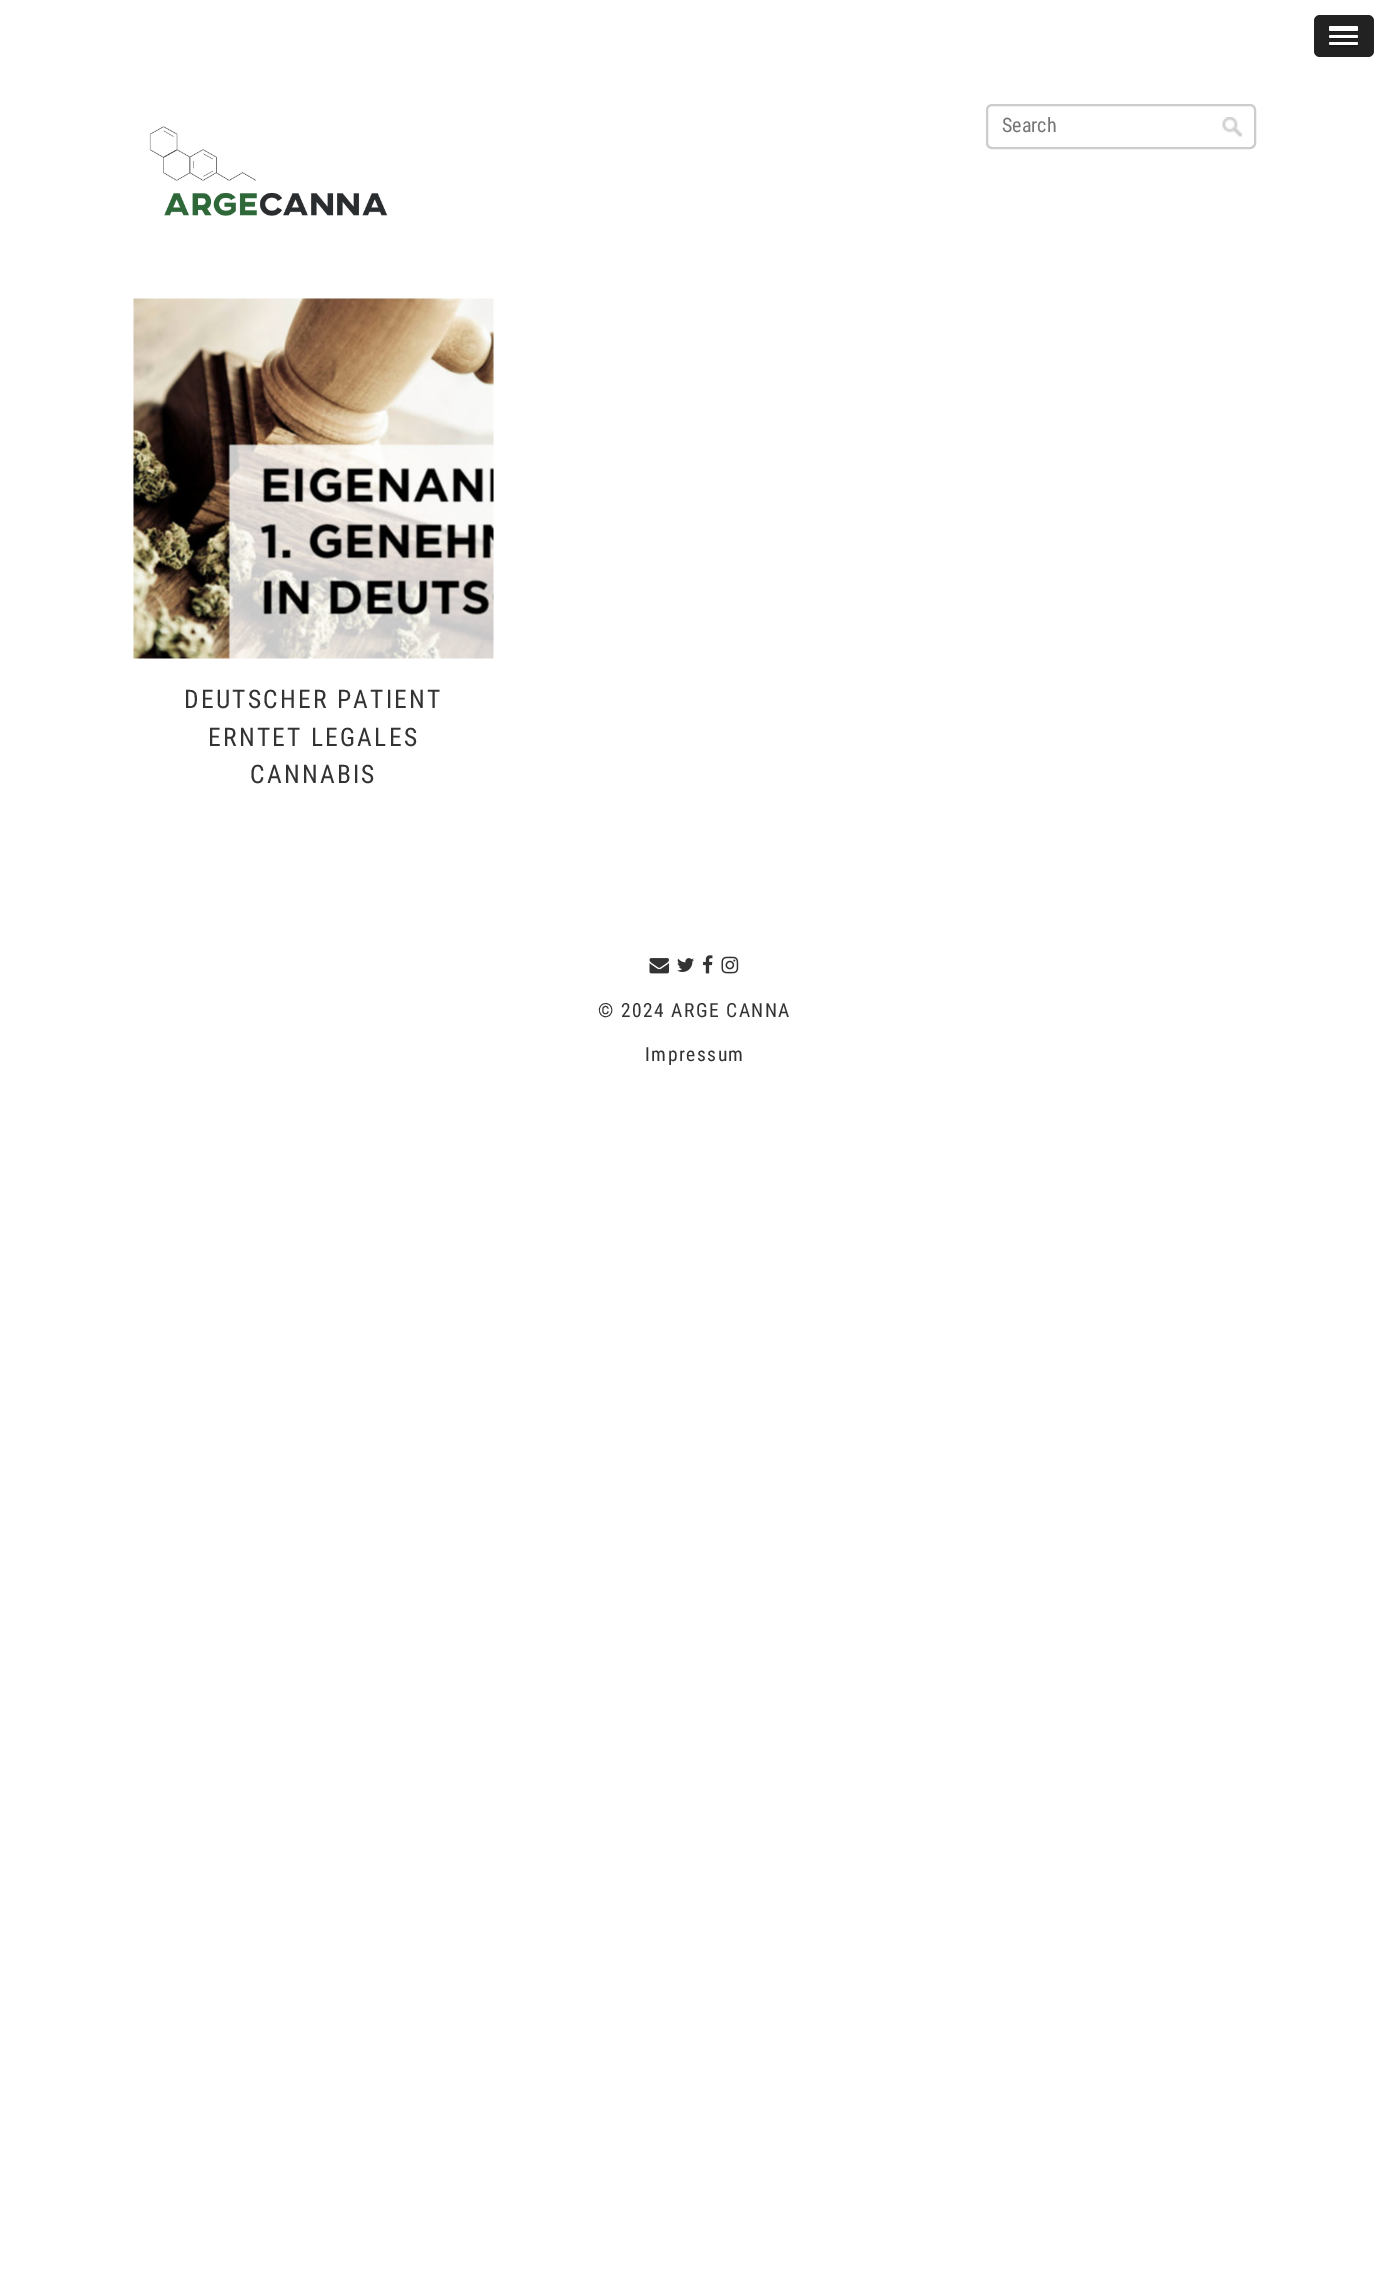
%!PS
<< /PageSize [1389 2271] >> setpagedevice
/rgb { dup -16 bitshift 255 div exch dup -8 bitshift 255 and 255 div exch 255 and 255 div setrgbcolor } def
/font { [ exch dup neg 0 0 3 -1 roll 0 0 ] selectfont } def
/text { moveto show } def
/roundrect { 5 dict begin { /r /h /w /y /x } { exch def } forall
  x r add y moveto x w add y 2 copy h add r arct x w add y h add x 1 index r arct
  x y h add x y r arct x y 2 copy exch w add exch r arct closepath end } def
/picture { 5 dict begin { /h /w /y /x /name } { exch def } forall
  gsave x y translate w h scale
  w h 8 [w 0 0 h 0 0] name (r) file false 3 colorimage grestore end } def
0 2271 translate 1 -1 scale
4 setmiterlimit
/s1 { /RobotoCondensed-Regular 20 font 16#757575 rgb } def
16#FFFFFF rgb
0 0 1389 2271 rectfill
16#222222 rgb
1314 15 60 42 6 roundrect fill
16#1A1A1A rgb
1329 28.5 moveto 1329 33 1330 32 1335 32 curveto 1352 32 lineto 1355.5 32 1358 33 1358 29.5 curveto 1358 28.5 1358 28 1357.5 27.5 curveto 1357.5 28.5 lineto 1357.5 29.5 1357 30 1356 30 curveto 1330.5 30 lineto 1329.5 30 1329 29.5 1329 28.5 curveto closepath fill
16#FFFFFF rgb
1329 26 29 5 1.5 roundrect fill
16#1A1A1A rgb
1329 36.5 moveto 1327.5 39.5 1332 39 1335 39 curveto 1357 39 lineto 1358 38.5 1358.5 37 1357.5 36.5 curveto 1356.5 37.5 lineto 1330.5 37.5 lineto closepath fill
16#FFFFFF rgb
1329 35 29 3 1.5 roundrect fill
16#1A1A1A rgb
1329.5 44.5 moveto 1329 46 lineto 1329.5 48 1334.5 47 1335 47 curveto 1343.5 47 lineto 1345.5 47 1356.5 47.5 1357.5 46.5 curveto 1358 46 1358 45 1357.5 44 curveto 1356.5 46 1352 45 1352 45 curveto 1349 45 1330.5 45.5 1329.5 44.5 curveto closepath fill
16#FFFFFF rgb
1329 42 29 3 1.5 roundrect fill
(pic1.raw) 149 126 239 90 picture
16#CCCCCC rgb
2 setlinewidth
987 105 268 43 5 roundrect stroke
s1
(Search) 1002 132 text
(pic2.raw) 1222 117 20 20 picture
(pic3.raw) 133 298 361 361 picture
/RobotoCondensed-Regular 25.5 font
16#333333 rgb
184 708 moveto 2.25 0 (DEUTSCHER PATIENT) ashow
208 746 moveto 2.25 0 (ERNTET LEGALES) ashow
250 783 moveto 2.25 0 (CANNABIS) ashow
(pic4.raw) 649 958 20 16 picture
(pic5.raw) 677 958 17 14 picture
(pic6.raw) 703 955 10 19 picture
(pic7.raw) 721 956 18 18 picture
/RobotoCondensed-Regular 19.5 font
598 1017 moveto 1.5 0 (© 2024 ARGE CANNA) ashow
645 1061 moveto 1.5 0 (Impressum) ashow
showpage
